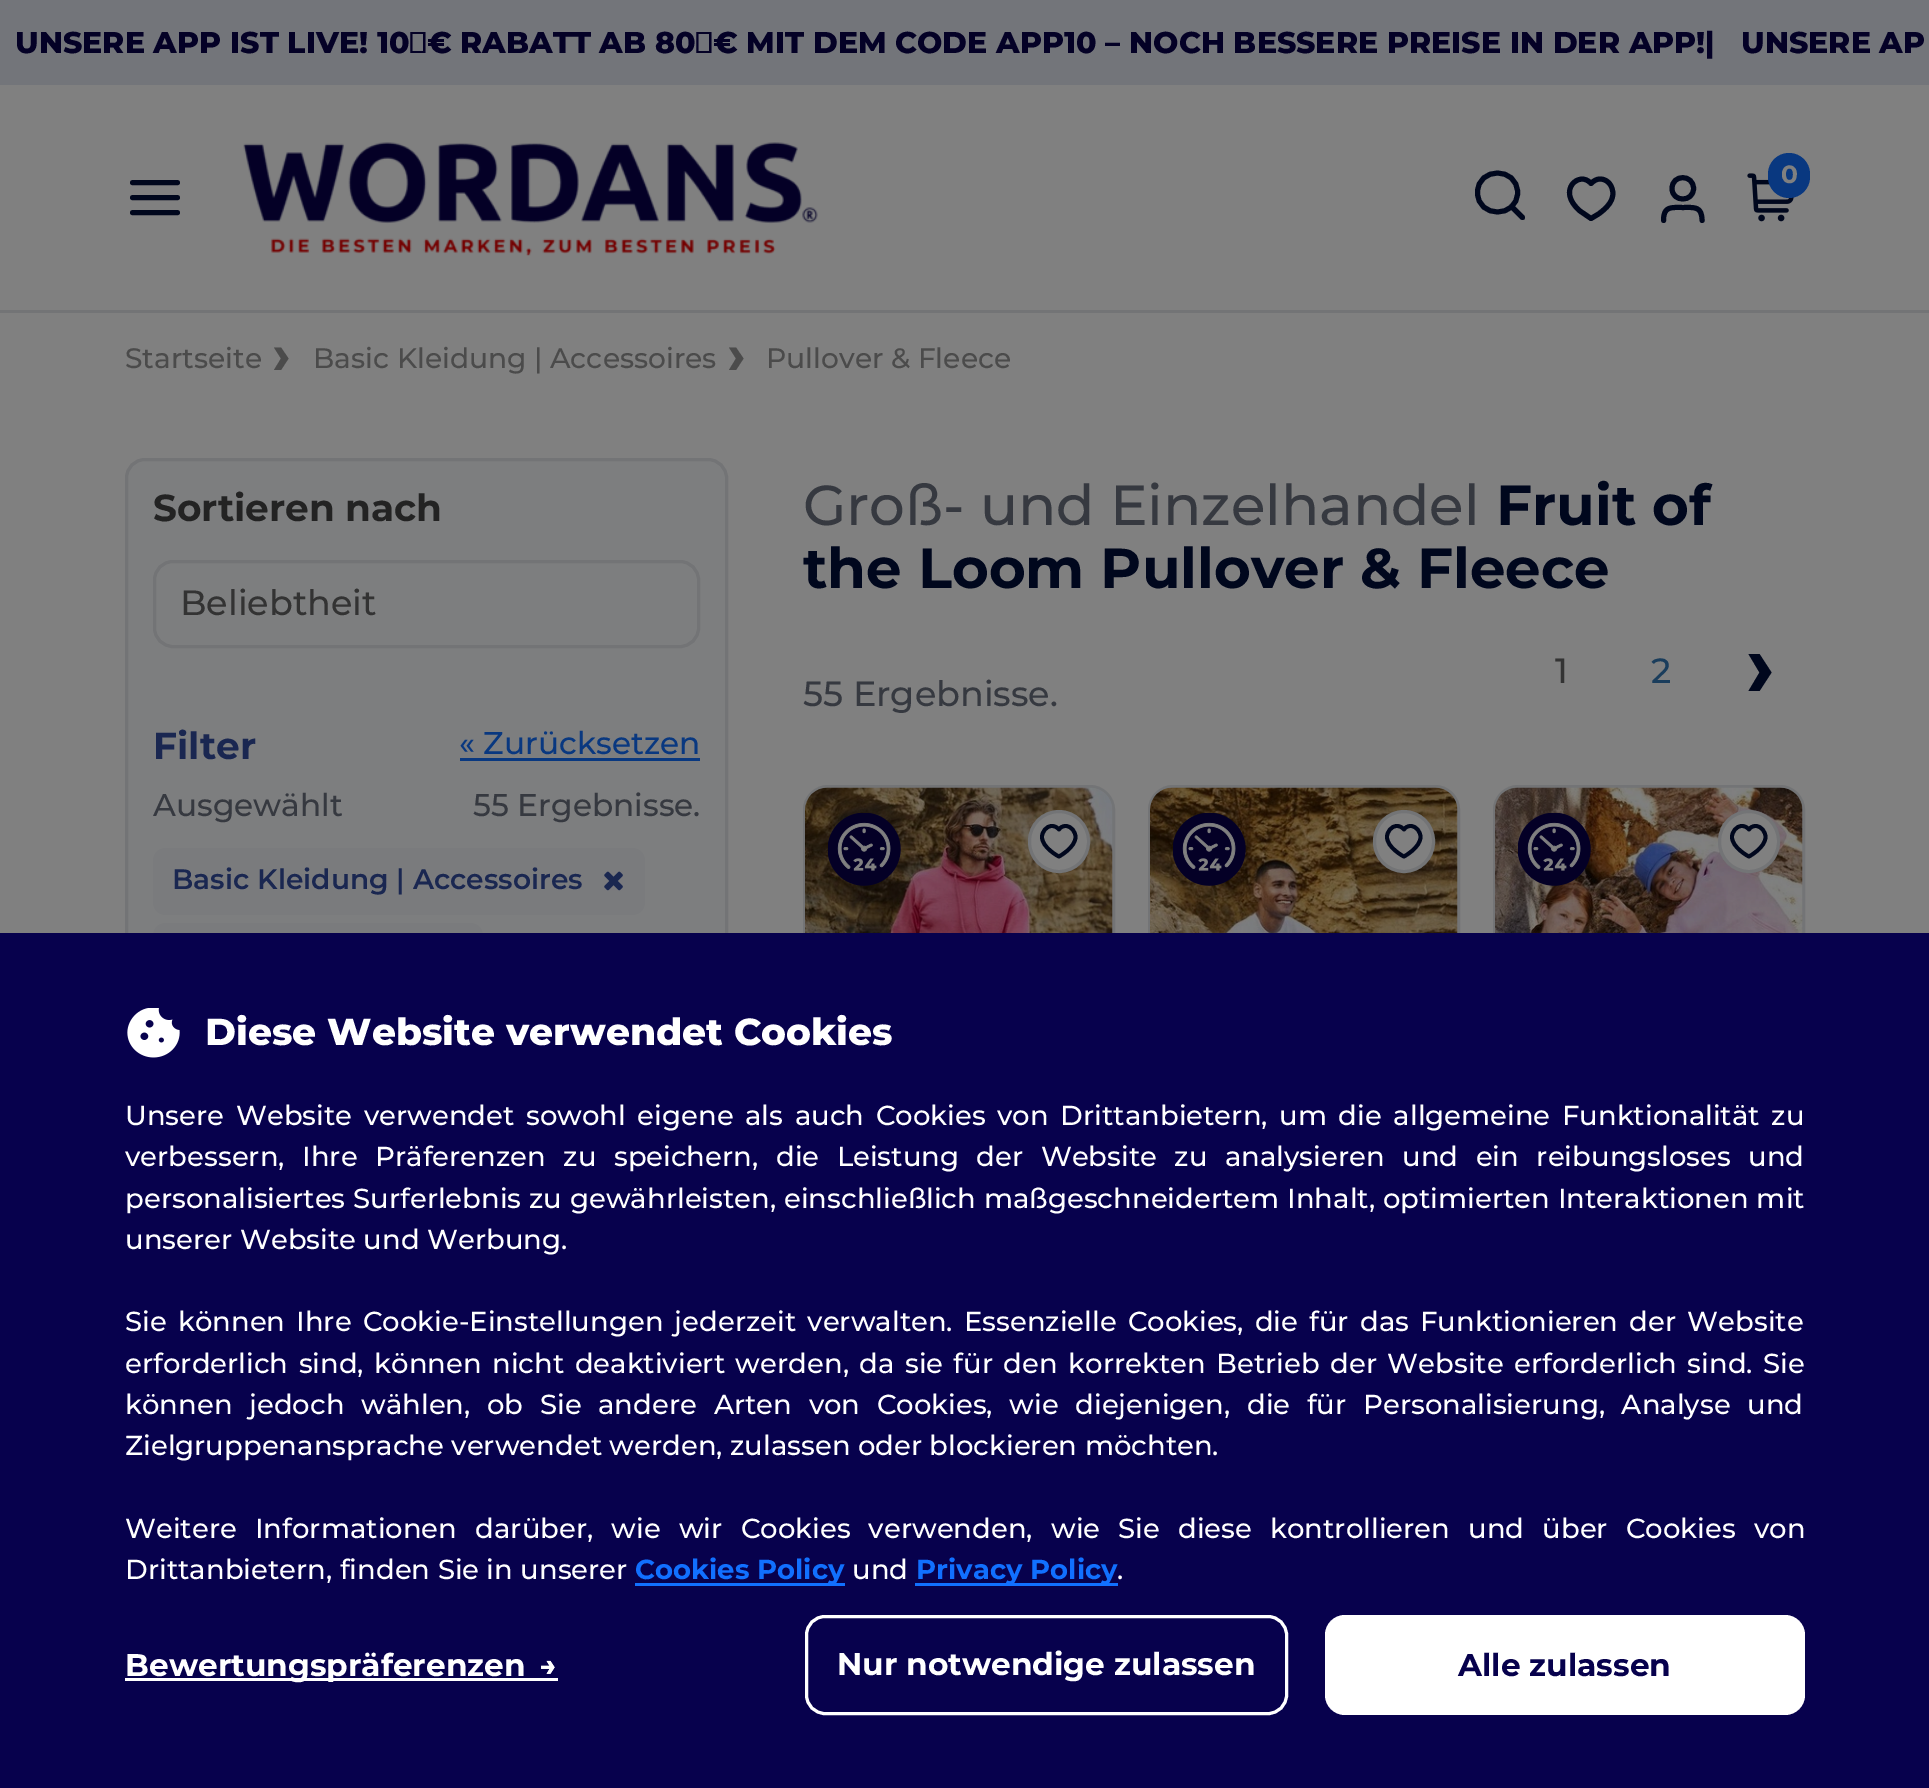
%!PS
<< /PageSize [1929 1788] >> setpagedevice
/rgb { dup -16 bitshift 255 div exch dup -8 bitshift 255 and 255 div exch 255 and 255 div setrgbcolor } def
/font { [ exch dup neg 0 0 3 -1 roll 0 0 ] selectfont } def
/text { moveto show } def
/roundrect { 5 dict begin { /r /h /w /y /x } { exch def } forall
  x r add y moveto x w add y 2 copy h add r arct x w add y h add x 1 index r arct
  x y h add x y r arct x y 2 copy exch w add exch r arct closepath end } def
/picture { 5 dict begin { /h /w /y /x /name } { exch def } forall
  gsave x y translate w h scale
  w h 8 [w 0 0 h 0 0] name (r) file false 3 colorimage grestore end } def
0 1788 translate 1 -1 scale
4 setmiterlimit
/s1 { /Montserrat-ExtraBold 30 font 16#040126 rgb } def
/s2 { /Montserrat-Bold 25 font 16#808080 rgb } def
/s3 { /Montserrat-Medium 28.1 font 16#4B4B4B rgb } def
/s4 { /Montserrat-Bold 37.5 font 16#232323 rgb } def
/s5 { /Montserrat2-Medium 35 font 16#333333 rgb } def
/s6 { /Montserrat-Bold 37.5 font 16#1A2751 rgb } def
/s7 { /Montserrat2-Medium 31.25 font 16#093880 rgb } def
/s8 { /Montserrat2-Medium 31.25 font 16#363940 rgb } def
/s9 { /Montserrat-SemiBold 28.1 font 16#1A2751 rgb } def
/s10 { /Montserrat2-Medium 56.25 font 16#363940 rgb } def
/s11 { /Montserrat-Bold 56.25 font 16#00071D rgb } def
/s12 { /Montserrat2-Medium 35 font 16#1A3D5C rgb } def
/s13 { /Montserrat2-Medium 35 font 16#363940 rgb } def
/s14 { /Montserrat-ExtraBold 37.5 font 16#FFFFFF rgb } def
/s15 { /Montserrat2-Medium 27.5 font 16#FFFFFF rgb } def
/s16 { /Montserrat-Bold 27.5 font 16#1170FF rgb } def
/s17 { /Montserrat-Bold 31.25 font 16#FFFFFF rgb } def
/s18 { /Montserrat-Bold 31.25 font 16#07014D rgb } def
16#808080 rgb
0 0 1929 1788 rectfill
16#73757A rgb
0 0 1929 85 rectfill
s1
(UNSERE APP IST LIVE! 10 € RABATT AB 80 € MIT DEM CODE APP10 – NOCH BESSERE PREISE IN DER APP!) 15 53 text
(|) 1705 53 text
(UNSERE AP) 1741 53 text
16#00071D rgb
5 setlinewidth
1 setlinecap
1 setlinejoin
132.5 197.5 moveto 177.5 197.5 lineto 132.5 182.5 moveto 177.5 182.5 lineto 132.5 212.5 moveto 177.5 212.5 lineto stroke
(pic1.raw) 243 142 575 114 picture
1522.5 217.5 moveto 1511.5 206.5 lineto 1517.5 192.5 moveto 1517.5 218.5 1477.5 218.5 1477.5 192.5 curveto 1477.5 166.5 1517.5 166.5 1517.5 192.5 curveto closepath stroke
1600 179 moveto 1610 179 1615 190 1612 198.5 curveto 1610 205 1604 210 1598.5 214 curveto 1591 218.5 lineto 1580 211 lineto 1555.5 190 1580 170 1591 183.5 curveto 1593 181.5 1596 179 1600 179 curveto closepath stroke
1702 220.5 moveto 1702 206 1694.5 207.5 1683 207.5 curveto 1671 207.5 1663.5 206 1663.5 220.5 curveto 1693.5 188.5 moveto 1693.5 202.5 1672 202.5 1672 188.5 curveto 1672 174 1693.5 174 1693.5 188.5 curveto closepath stroke
(pic2.raw) 1747 173 49 49 picture
16#093880 rgb
1768 153 42 45 21 roundrect fill
s2
(0) 1781 183 text
16#737476 rgb
0 310 1929 3 rectfill
s3
(Startseite) 125 368 text
274 370 moveto 281 370 lineto 288.5 358.5 lineto 281 347.5 lineto 274 347.5 lineto 281 358.5 lineto closepath eofill
(Basic Kleidung | Accessoires) 313 368 text
729 370 moveto 736 370 lineto 743.5 358.5 lineto 736 347.5 lineto 729 347.5 lineto 736 358.5 lineto closepath eofill
(Pullover & Fleece) 766 368 text
16#7D7E7F rgb
126.5 459.5 600 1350 18.5 roundrect gsave fill grestore
16#737476 rgb
3 setlinewidth
0 setlinecap
0 setlinejoin
stroke
s4
(Sortieren nach) 153 521 text
16#737476 rgb
154.5 561.5 544 85 18.5 roundrect stroke
s5
(Beliebtheit) 180 615 text
s6
(Filter) 153 759 text
s7
(« Zurücksetzen) 459 754 text
460 758 240 3 rectfill
s8
(Ausgewählt) 153 816 text
(55 Ergebnisse.) 473 816 text
16#7A7B7D rgb
153 848 492 67 13 roundrect fill
s9
(Basic Kleidung | Accessoires) 172 889 text
(pic3.raw) 604 871 19 20 picture
16#7A7B7D rgb
153 923 330 67 13 roundrect fill
s10
(Groß- und Einzelhandel) 803 525 text
s11
(Fruit of) 1496 525 text
(the Loom Pullover & Fleece) 803 588 text
s5
(1) 1555 683 text
s12
(2) 1651 683 text
16#00071D rgb
1748.5 691 moveto 1759.5 691 lineto 1771.5 672.5 lineto 1759.5 654 lineto 1748.5 654 lineto 1759.5 672.5 lineto closepath eofill
s13
(55 Ergebnisse.) 803 706 text
16#737476 rgb
804.5 786.5 309 465 23.5 roundrect stroke
(pic4.raw) 805 787 308 146 picture
(pic5.raw) 828 813 73 73 picture
16#808080 rgb
1029.5 811.5 59 60 29.5 roundrect gsave fill grestore
16#737476 rgb
stroke
16#00071D rgb
3.8 setlinewidth
1 setlinecap
1 setlinejoin
1065.5 826 moveto 1071.5 826 1075.5 832 1075.5 837 curveto 1075.5 847.5 1059 856.5 1059 856.5 curveto 1058.5 856.5 1042 847.5 1042 837 curveto 1042 832 1046 826 1052 826 curveto 1055.5 826 1057.5 828 1059 829.5 curveto 1060 828 1062 826 1065.5 826 curveto closepath stroke
16#737476 rgb
3 setlinewidth
0 setlinecap
0 setlinejoin
1149.5 786.5 309 465 23.5 roundrect stroke
(pic6.raw) 1150 787 308 146 picture
(pic7.raw) 1173 813 73 73 picture
16#808080 rgb
1374.5 811.5 59 60 29.5 roundrect gsave fill grestore
16#737476 rgb
stroke
16#00071D rgb
3.8 setlinewidth
1 setlinecap
1 setlinejoin
1410.5 826 moveto 1416.5 826 1420.5 832 1420.5 837 curveto 1420.5 847.5 1404 856.5 1404 856.5 curveto 1403.5 856.5 1387 847.5 1387 837 curveto 1387 832 1391 826 1397 826 curveto 1400.5 826 1402.5 828 1404 829.5 curveto 1405 828 1407 826 1410.5 826 curveto closepath stroke
16#737476 rgb
3 setlinewidth
0 setlinecap
0 setlinejoin
1494.5 786.5 309 465 23.5 roundrect stroke
(pic8.raw) 1495 787 308 146 picture
(pic9.raw) 1518 813 73 73 picture
16#808080 rgb
1719.5 811.5 59 60 29.5 roundrect gsave fill grestore
16#737476 rgb
stroke
16#00071D rgb
3.8 setlinewidth
1 setlinecap
1 setlinejoin
1755.5 826 moveto 1761.5 826 1765.5 832 1765.5 837 curveto 1765.5 847.5 1749 856.5 1749 856.5 curveto 1748.5 856.5 1732 847.5 1732 837 curveto 1732 832 1736 826 1742 826 curveto 1745.5 826 1747.5 828 1749 829.5 curveto 1750 828 1752 826 1755.5 826 curveto closepath stroke
16#07014D rgb
0 933 1929 855 rectfill
(pic10.raw) 127 1008 53 50 picture
s14
(Diese Website verwendet Cookies) 205 1045 text
/Montserrat2-Medium 27.5 font
125 1125 moveto 4.25 0 32 (Unsere Website verwendet sowohl eigene als auch Cookies von Drittanbietern, um die allgemeine Funktionalität zu) widthshow
125 1166 moveto 10.1 0 32 (verbessern, Ihre Präferenzen zu speichern, die Leistung der Website zu analysieren und ein reibungsloses und) widthshow
125 1208 moveto 0.5 0 32 (personalisiertes Surferlebnis zu gewährleisten, einschließlich maßgeschneidertem Inhalt, optimierten Interaktionen mit) widthshow
(unserer Website und Werbung.) 125 1249 text
125 1331 moveto 3.75 0 32 (Sie können Ihre Cookie-Einstellungen jederzeit verwalten. Essenzielle Cookies, die für das Funktionieren der Website) widthshow
125 1373 moveto 3 0 32 (erforderlich sind, können nicht deaktiviert werden, da sie für den korrekten Betrieb der Website erforderlich sind. Sie) widthshow
125 1414 moveto 9.25 0 32 (können jedoch wählen, ob Sie andere Arten von Cookies, wie diejenigen, die für Personalisierung, Analyse und) widthshow
(Zielgruppenansprache verwendet werden, zulassen oder blockieren möchten.) 125 1455 text
125 1538 moveto 10.75 0 32 (Weitere Informationen darüber, wie wir Cookies verwenden, wie Sie diese kontrollieren und über Cookies von) widthshow
(Drittanbietern, finden Sie in unserer) 125 1579 text
16#1170FF rgb
635 1583 210 3 rectfill
s16
(Cookies Policy) 635 1579 text
s15
(und) 852 1579 text
16#1170FF rgb
915 1583 203 3 rectfill
s16
(Privacy Policy) 916 1579 text
s15
(.) 1117 1579 text
s17
(Bewertungspräferenzen) 125 1676 text
(pic11.raw) 541 1660 14 14 picture
125 1678 433 3 rectfill
3 setlinewidth
0 setlinecap
0 setlinejoin
806.5 1616.5 480 97 18.5 roundrect stroke
(Nur notwendige zulassen) 837 1675 text
1325 1615 480 100 20 roundrect fill
s18
(Alle zulassen) 1458 1676 text
showpage
